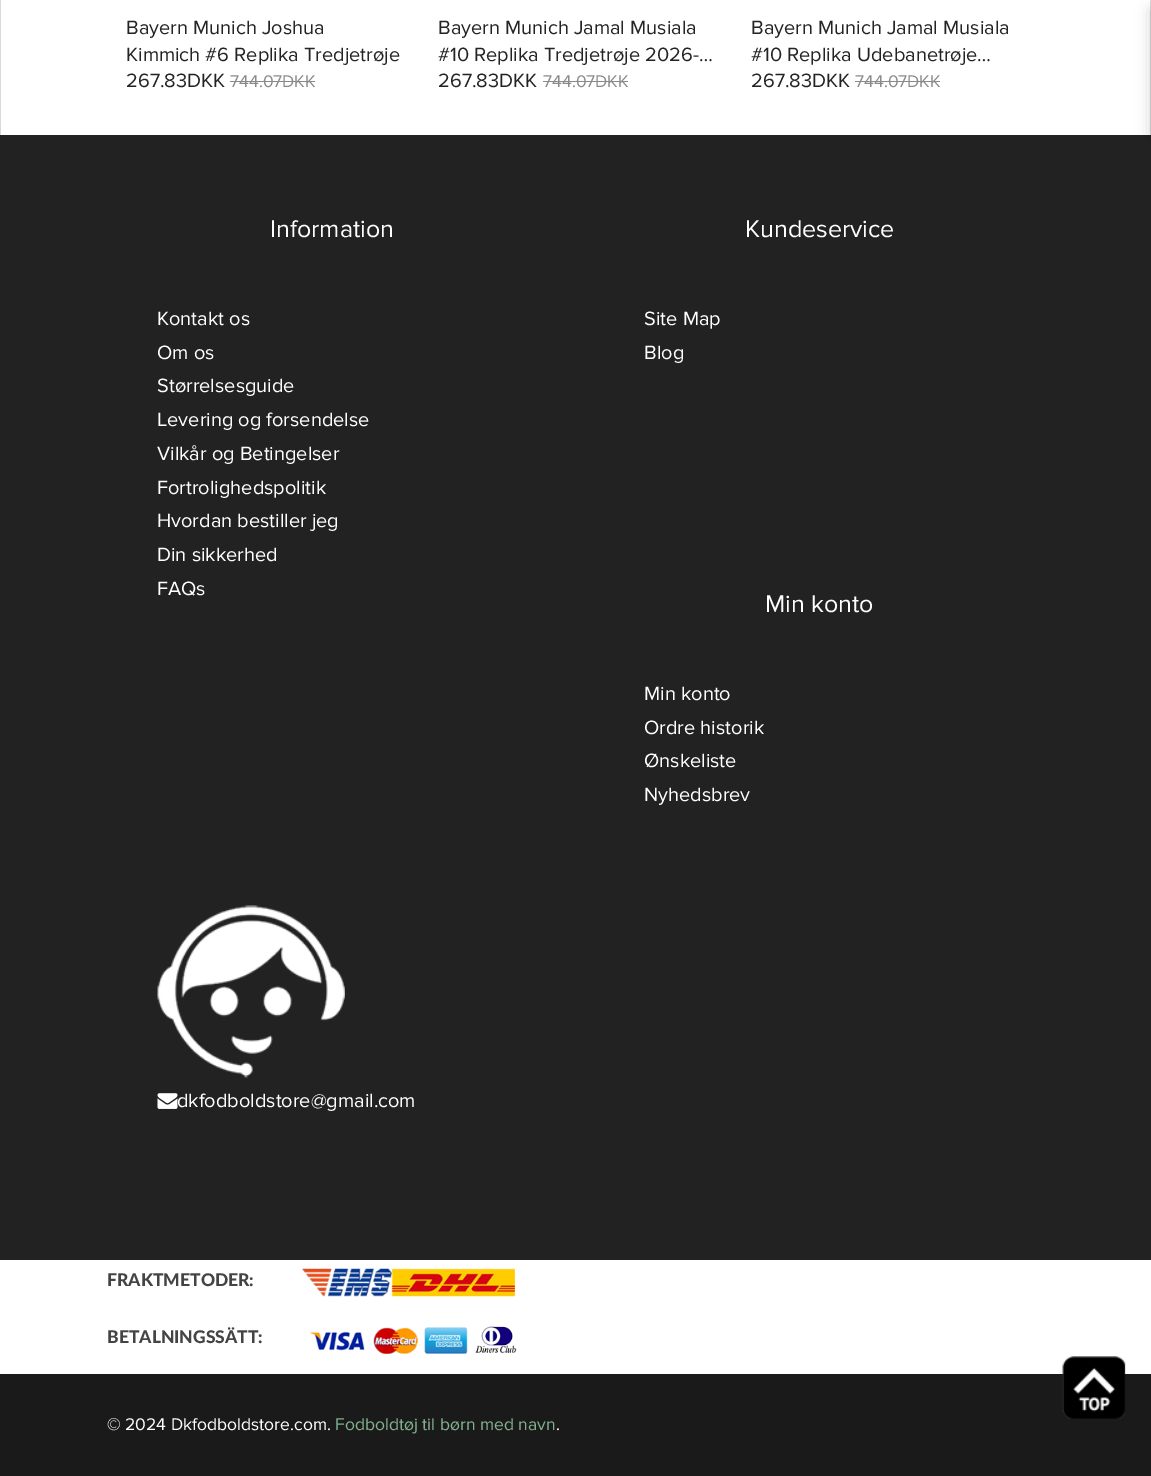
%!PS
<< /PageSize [1151 1476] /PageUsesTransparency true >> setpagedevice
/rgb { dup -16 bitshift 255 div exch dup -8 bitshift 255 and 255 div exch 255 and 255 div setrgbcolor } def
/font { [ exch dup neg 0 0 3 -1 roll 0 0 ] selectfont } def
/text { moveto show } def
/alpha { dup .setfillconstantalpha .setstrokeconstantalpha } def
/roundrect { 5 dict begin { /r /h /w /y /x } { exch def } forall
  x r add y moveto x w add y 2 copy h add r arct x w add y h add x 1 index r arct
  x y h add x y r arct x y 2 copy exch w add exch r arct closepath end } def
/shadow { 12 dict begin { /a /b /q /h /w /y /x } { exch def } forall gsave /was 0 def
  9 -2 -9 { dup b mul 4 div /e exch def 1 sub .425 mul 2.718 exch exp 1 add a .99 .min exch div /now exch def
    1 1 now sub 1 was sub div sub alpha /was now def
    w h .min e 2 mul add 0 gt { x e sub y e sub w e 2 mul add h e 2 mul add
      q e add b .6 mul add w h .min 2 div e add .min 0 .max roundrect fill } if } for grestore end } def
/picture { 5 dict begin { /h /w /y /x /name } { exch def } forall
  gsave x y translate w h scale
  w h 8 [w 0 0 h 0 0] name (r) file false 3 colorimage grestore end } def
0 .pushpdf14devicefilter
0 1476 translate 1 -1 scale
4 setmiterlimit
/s1 { /ProximaNova-Regular 20 font 16#242424 rgb } def
/s2 { /ProximaNova-Regular 17.5 font 16#8A8A8A rgb } def
/s3 { /ProximaNova-Regular 25 font 16#FFFFFF rgb } def
/s4 { /ProximaNova-Regular 20 font 16#FFFFFF rgb } def
/s5 { /Lato-Black 17.5 font 16#444444 rgb } def
/s6 { /ProximaNova-Regular 17.5 font 16#FFFFFF rgb } def
/s7 { /ProximaNova-Regular 17.5 font 16#82B08E rgb } def
16#FFFFFF rgb
0 0 1151 1476 rectfill
16#D9D9D9 rgb
1150 0 1 135 rectfill
0 0 1 135 rectfill
s1
(Bayern Munich Joshua) 126 34 text
(Kimmich #6 Replika Tredjetrøje) 126 61 text
(267.83DKK) 126 87 text
s2
(744.07DKK) 230 87 text
230 81 85 1 rectfill
s1
(Bayern Munich Jamal Musiala) 438 34 text
(#10 Replika Tredjetrøje 2026-…) 438 61 text
(267.83DKK) 438 87 text
s2
(744.07DKK) 543 87 text
543 81 85 1 rectfill
s1
(Bayern Munich Jamal Musiala) 751 34 text
(#10 Replika Udebanetrøje…) 751 61 text
(267.83DKK) 751 87 text
s2
(744.07DKK) 855 87 text
855 81 85 1 rectfill
16#222222 rgb
0 135 1151 1125 rectfill
16#000000 rgb
1151 10 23 125 0 7.5 0.18 shadow
s3
(Information) 270 237 text
s4
(Kontakt os) 157 325 text
(Om os) 157 359 text
(Størrelsesguide) 157 392 text
(Levering og forsendelse) 157 426 text
(Vilkår og Betingelser) 157 460 text
(Fortrolighedspolitik) 157 494 text
(Hvordan bestiller jeg) 157 527 text
(Din sikkerhed) 157 561 text
(FAQs) 157 595 text
s3
(Kundeservice) 745 237 text
s4
(Site Map) 644 325 text
(Blog) 644 359 text
s3
(Min konto) 765 612 text
s4
(Min konto) 644 700 text
(Ordre historik) 644 734 text
(Ønskeliste) 644 767 text
(Nyhedsbrev) 644 801 text
(pic1.raw) 157 905 188 173 picture
(pic2.raw) 157 1093 21 16 picture
(dkfodboldstore@gmail.com) 177 1107 text
s5
(FRAKTMETODER:) 107 1286 text
(pic3.raw) 302 1268 213 29 picture
(BETALNINGSSÄTT:) 107 1343 text
(pic4.raw) 310 1326 207 28 picture
16#1A1A1A rgb
0 1374 1151 102 rectfill
(pic5.raw) 1062 1356 64 63 picture
s6
(© 2024 Dkfodboldstore.com.) 107 1430 text
s7
(Fodboldtøj til børn med navn) 335 1430 text
s6
(.) 556 1430 text
.poppdf14devicefilter showpage
